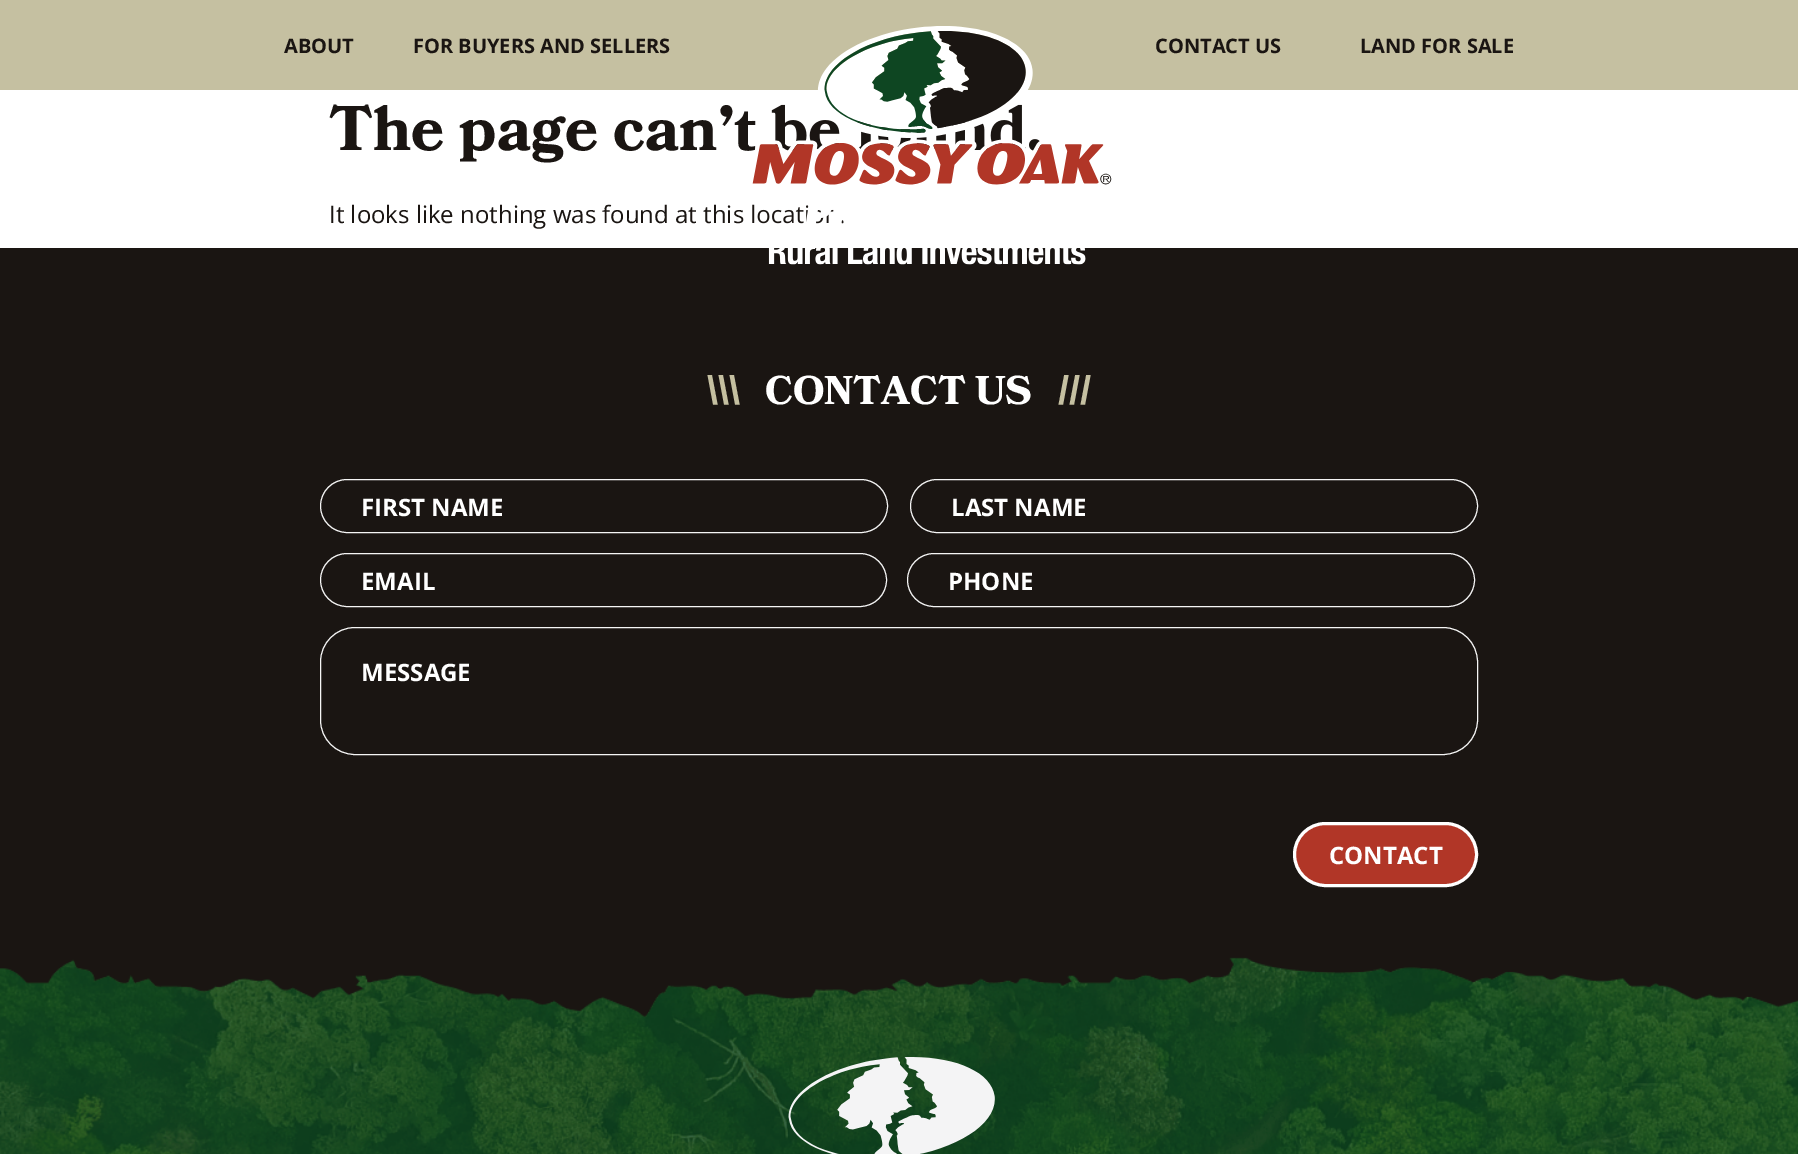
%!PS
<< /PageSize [1798 1154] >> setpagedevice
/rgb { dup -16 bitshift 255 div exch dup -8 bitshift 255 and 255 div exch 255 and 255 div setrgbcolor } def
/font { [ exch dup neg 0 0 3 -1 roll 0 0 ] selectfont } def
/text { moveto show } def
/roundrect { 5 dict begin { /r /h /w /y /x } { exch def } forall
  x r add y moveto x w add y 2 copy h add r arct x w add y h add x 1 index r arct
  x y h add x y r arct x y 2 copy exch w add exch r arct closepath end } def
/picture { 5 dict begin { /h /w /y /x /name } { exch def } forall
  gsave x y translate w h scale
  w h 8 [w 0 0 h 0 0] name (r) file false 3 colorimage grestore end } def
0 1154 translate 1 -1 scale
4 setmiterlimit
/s1 { /OpenSans-Bold 20 font 16#1A1512 rgb } def
/s2 { /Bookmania-Bold 63 font 16#1A1512 rgb } def
/s3 { /OpenSans-Regular 24 font 16#1A1512 rgb } def
/s4 { /LiberationSans-Bold 40 font 16#C5C0A1 rgb } def
/s5 { /Bookmania-Bold 40 font 16#FFFFFF rgb } def
/s6 { /OpenSans-Bold 24 font 16#FFFFFF rgb } def
16#FFFFFF rgb
0 0 1798 1154 rectfill
16#C5C0A1 rgb
0 0 1798 90 rectfill
s1
(ABOUT) 284 53 text
(FOR BUYERS AND SELLERS) 413 53 text
s2
(The page can’t) 329 150 text
s3
(It looks like nothing was found at this locat) 329 223 text
0 248 1798 770 rectfill
(pic1.raw) 752 26 360 239 picture
s1
(CONTACT US) 1155 53 text
(LAND FOR SALE) 1360 53 text
s4
(\\\\\\) 707 404 text
s5
(CONTACT US) 765 404 text
s4
(///) 1058 404 text
16#F5F5F5 rgb
320.5 479.5 567 53 26.5 roundrect stroke
s6
(FIRST NAME) 361 516 text
16#F5F5F5 rgb
910.5 479.5 567 53 26.5 roundrect stroke
s6
(LAST NAME) 951 516 text
16#F5F5F5 rgb
320.5 553.5 566 53 26.5 roundrect stroke
s6
(EMAIL) 361 590 text
16#F5F5F5 rgb
907.5 553.5 567 53 26.5 roundrect stroke
s6
(PHONE) 948 590 text
16#F5F5F5 rgb
320.5 627.5 1157 127 34.5 roundrect stroke
s6
(MESSAGE) 361 681 text
16#B13627 rgb
1294.5 823.5 182 62 31 roundrect gsave fill grestore
16#FFFFFF rgb
3 setlinewidth
stroke
(CONTACT) 1329 864 text
(pic2.raw) 0 957 1798 197 picture
(pic3.raw) 788 1057 207 97 picture
showpage
